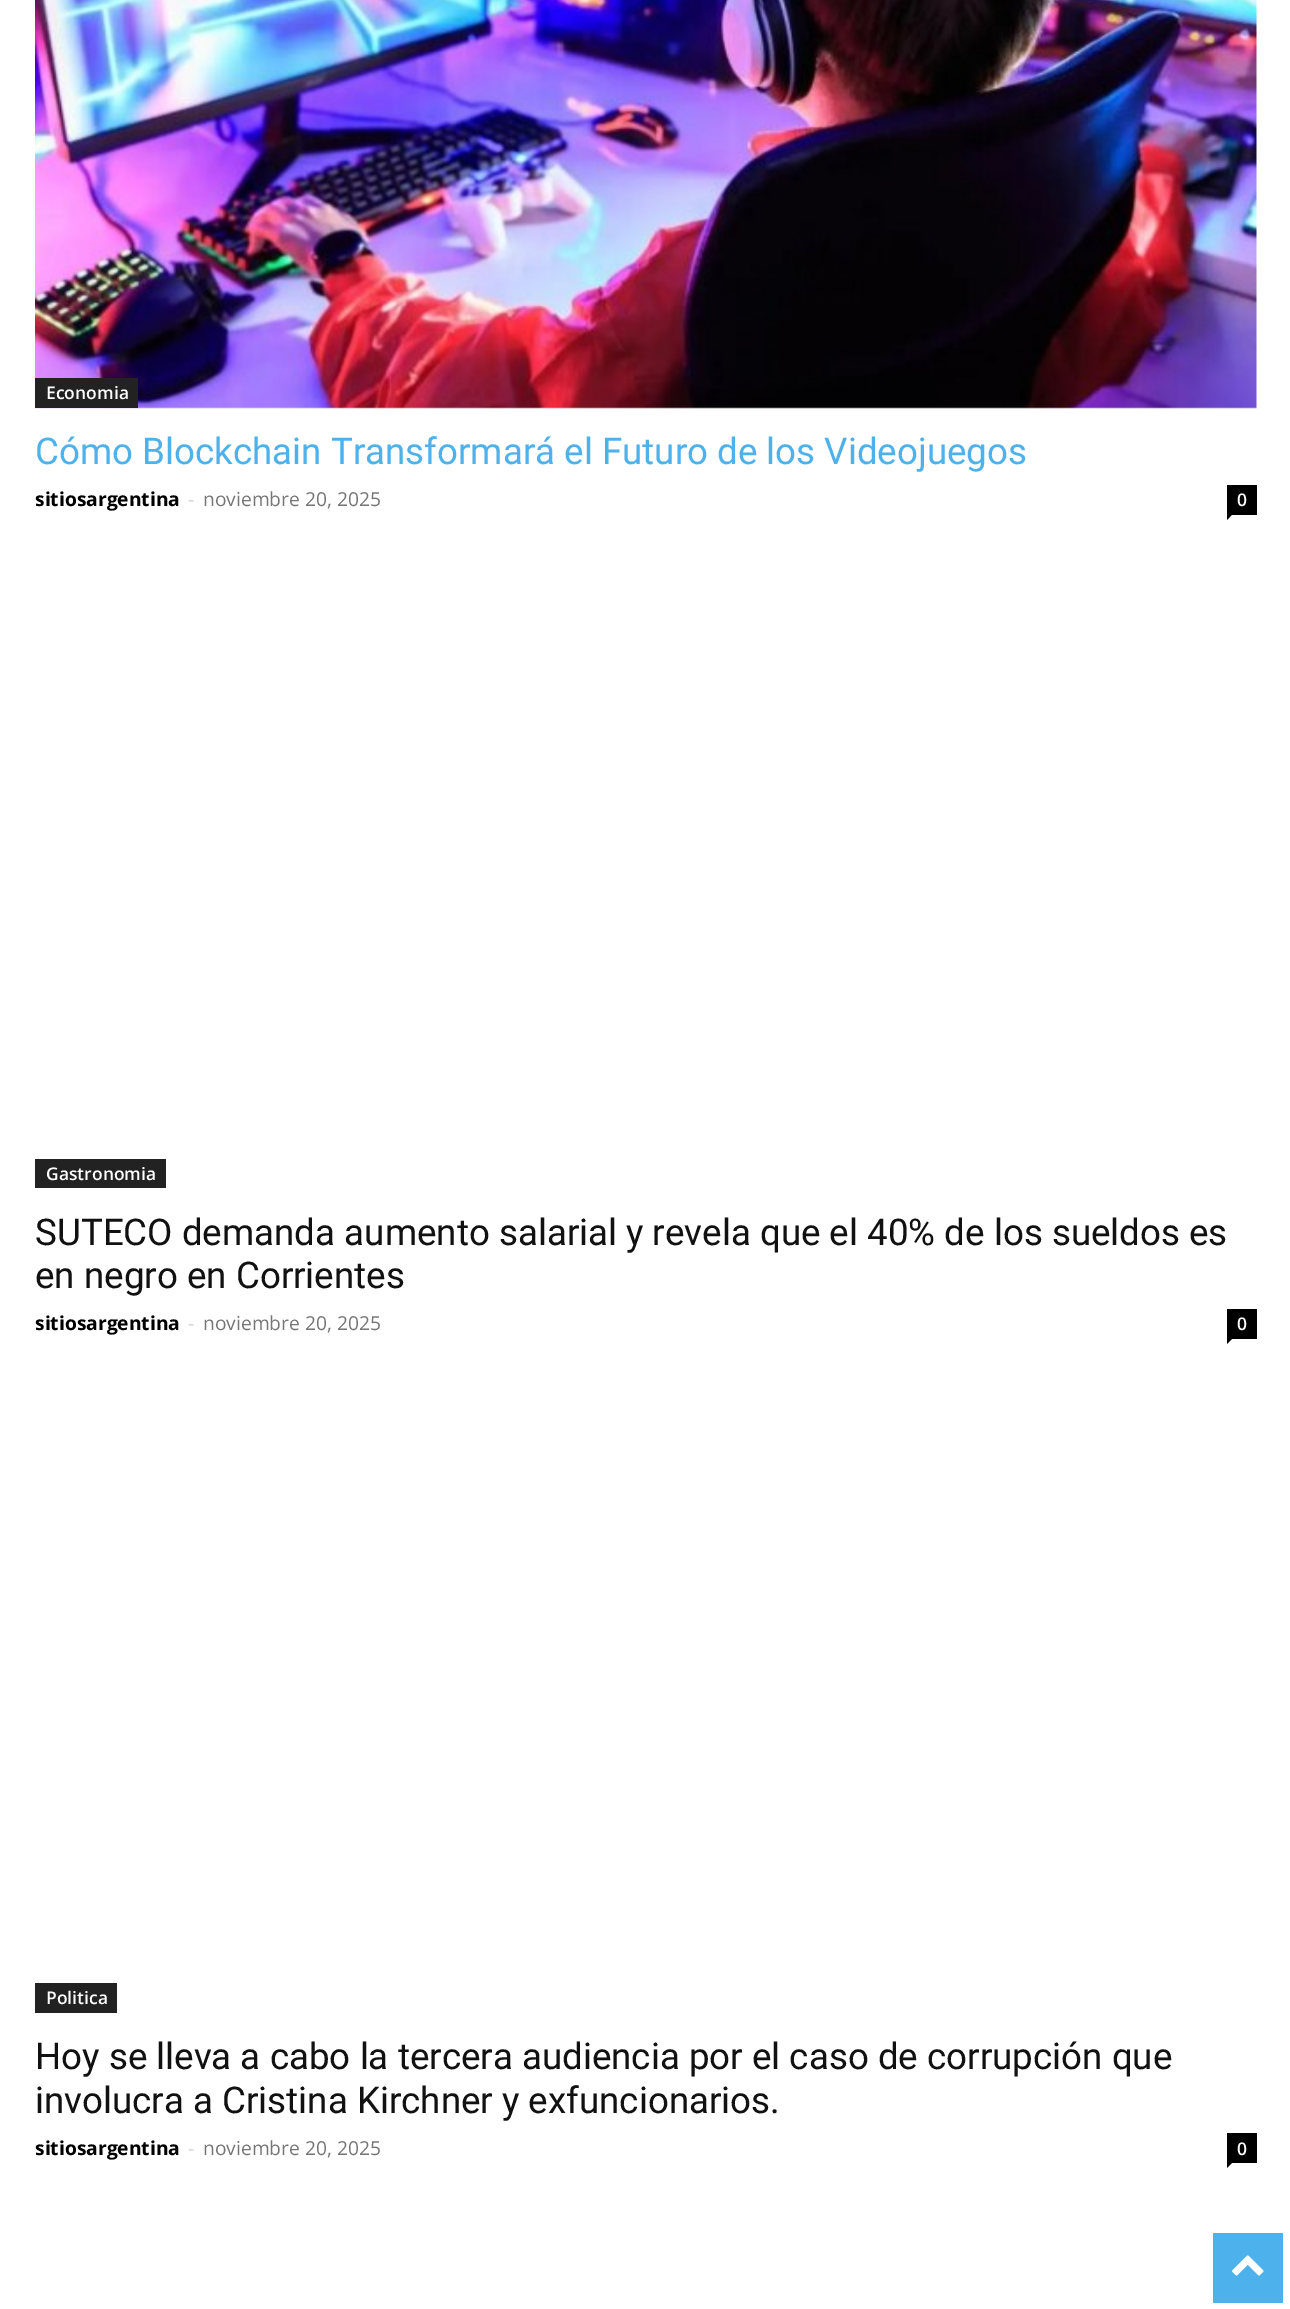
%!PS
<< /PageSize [1290 2309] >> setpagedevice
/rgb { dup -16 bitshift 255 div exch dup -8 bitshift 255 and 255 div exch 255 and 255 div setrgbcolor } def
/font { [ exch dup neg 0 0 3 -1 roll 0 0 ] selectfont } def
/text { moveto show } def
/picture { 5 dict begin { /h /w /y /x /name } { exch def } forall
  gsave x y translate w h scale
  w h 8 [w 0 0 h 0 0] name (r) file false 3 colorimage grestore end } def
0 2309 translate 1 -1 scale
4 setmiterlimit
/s1 { /OpenSans-SemiBold 17.5 font 16#FFFFFF rgb } def
/s2 { /Roboto-Regular 36.75 font 16#4DB2EC rgb } def
/s3 { /OpenSans-Bold 19.25 font 16#000000 rgb } def
/s4 { /OpenSans-Regular 19.25 font 16#CCCCCC rgb } def
/s5 { /OpenSans-Regular 19.25 font 16#767676 rgb } def
/s6 { /Roboto-Regular 36.75 font 16#111111 rgb } def
16#FFFFFF rgb
0 0 1290 2309 rectfill
(pic1.raw) 35 0 1222 409 picture
16#222222 rgb
35 378 103 30 rectfill
s1
(Economia) 46 399 text
s2
(Cómo Blockchain Transformará el Futuro de los Videojuegos) 35 464 text
s3
(sitiosargentina) 35 506 text
s4
(-) 188 506 text
s5
(noviembre 20, 2025) 203 506 text
16#000000 rgb
1227 485 30 30 rectfill
s1
(0) 1237 506 text
16#000000 rgb
1227 514.5 moveto 1232 514.5 lineto 1227 520 lineto closepath fill
16#222222 rgb
35 1159 131 29 rectfill
s1
(Gastronomia) 46 1180 text
s6
(SUTECO demanda aumento salarial y revela que el 40% de los sueldos es) 35 1245 text
(en negro en Corrientes) 35 1288 text
s3
(sitiosargentina) 35 1330 text
s4
(-) 188 1330 text
s5
(noviembre 20, 2025) 203 1330 text
16#000000 rgb
1227 1309 30 30 rectfill
s1
(0) 1237 1330 text
16#000000 rgb
1227 1339 moveto 1232 1339 lineto 1227 1344 lineto closepath fill
16#222222 rgb
35 1983 82 30 rectfill
s1
(Politica) 46 2004 text
s6
(Hoy se lleva a cabo la tercera audiencia por el caso de corrupción que) 35 2069 text
(involucra a Cristina Kirchner y exfuncionarios.) 35 2113 text
s3
(sitiosargentina) 35 2155 text
s4
(-) 188 2155 text
s5
(noviembre 20, 2025) 203 2155 text
16#000000 rgb
1227 2133 30 30 rectfill
s1
(0) 1237 2155 text
16#000000 rgb
1227 2163 moveto 1232 2163 lineto 1227 2168 lineto closepath fill
16#4DB2EC rgb
1213 2233 70 70 rectfill
(pic2.raw) 1232 2255 32 21 picture
showpage
